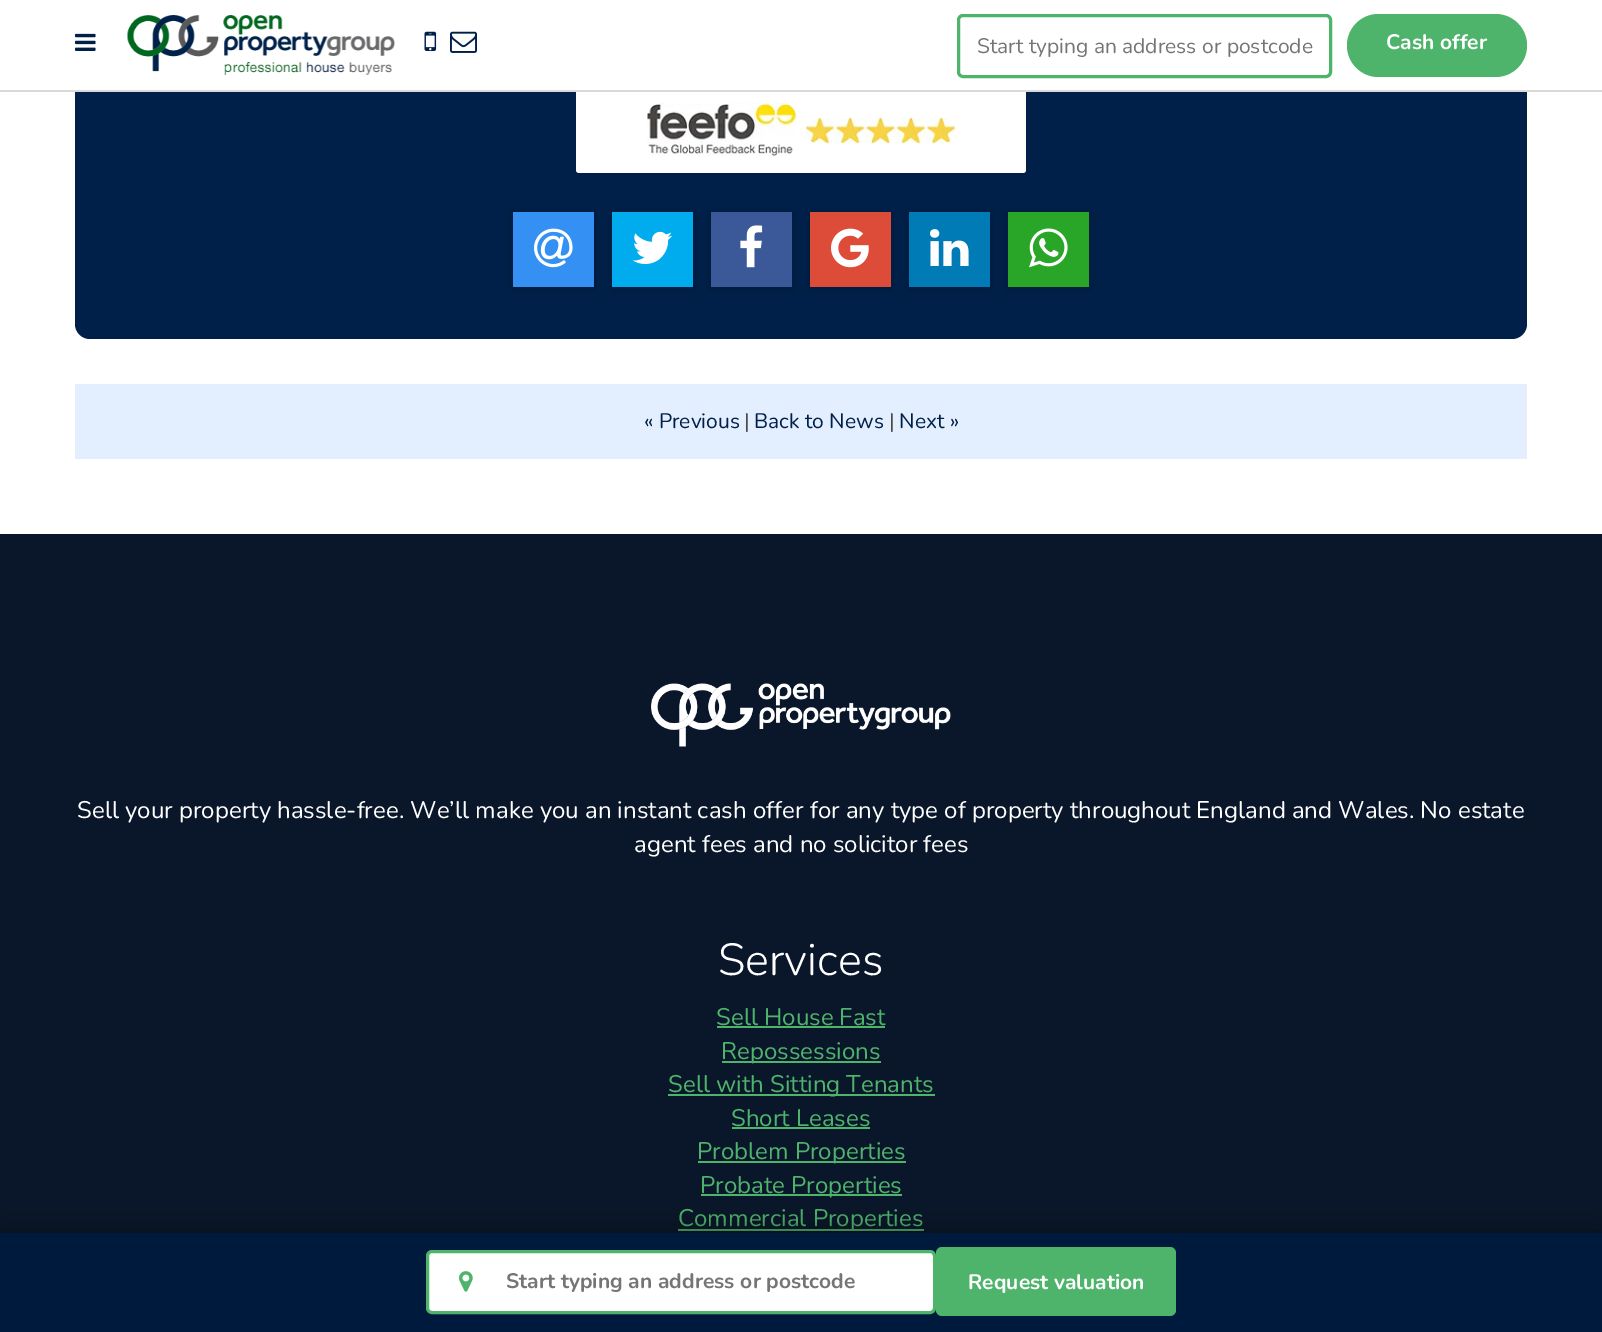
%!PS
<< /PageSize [1602 1332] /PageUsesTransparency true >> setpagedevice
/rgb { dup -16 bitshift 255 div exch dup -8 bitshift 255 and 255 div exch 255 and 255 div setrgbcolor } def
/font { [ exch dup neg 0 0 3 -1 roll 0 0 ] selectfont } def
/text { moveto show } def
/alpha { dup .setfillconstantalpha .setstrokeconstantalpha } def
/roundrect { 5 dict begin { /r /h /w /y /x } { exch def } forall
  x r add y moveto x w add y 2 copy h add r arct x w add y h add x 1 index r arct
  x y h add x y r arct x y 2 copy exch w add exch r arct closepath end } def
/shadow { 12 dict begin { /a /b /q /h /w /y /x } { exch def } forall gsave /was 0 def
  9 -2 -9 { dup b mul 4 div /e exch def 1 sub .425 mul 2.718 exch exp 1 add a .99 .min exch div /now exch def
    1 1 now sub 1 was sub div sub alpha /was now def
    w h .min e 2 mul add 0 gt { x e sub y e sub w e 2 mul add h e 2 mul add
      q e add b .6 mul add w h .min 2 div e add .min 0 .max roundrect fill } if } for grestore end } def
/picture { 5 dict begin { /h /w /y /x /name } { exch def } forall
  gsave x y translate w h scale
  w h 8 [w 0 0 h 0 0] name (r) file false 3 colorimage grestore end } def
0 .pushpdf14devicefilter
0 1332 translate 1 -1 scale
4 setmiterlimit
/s1 { /Nunito-Regular 21 font 16#757575 rgb } def
/s2 { /Nunito-Bold 21 font 16#FFFFFF rgb } def
/s3 { /Nunito-Regular 21 font 16#00204A rgb } def
/s4 { /Nunito-Regular 21 font 16#4A4A4A rgb } def
/s5 { /Nunito-Regular 24 font 16#FFFFFF rgb } def
/s6 { /Nunito-Light 45 font 16#FFFFFF rgb } def
/s7 { /Nunito-Regular 24 font 16#4EB36B rgb } def
/s8 { /Nunito-Bold 21 font 16#757575 rgb } def
16#FFFFFF rgb
0 0 1602 1332 rectfill
16#00204A rgb
75 -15 1452 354 15 roundrect fill
16#FFFFFF rgb
576 89 450 84 3 roundrect fill
75 0 1452 90 rectfill
16#D9D9D9 rgb
0 90 1602 2 rectfill
(pic1.raw) 75 33 21 18 picture
(pic2.raw) 127 15 268 60 picture
(pic3.raw) 424 31 13 20 picture
(pic4.raw) 450 31 27 22 picture
16#4EB36B rgb
3 setlinewidth
958.5 15.5 372 61 4.5 roundrect stroke
s1
(Start typing an address or postcode) 977 53 text
16#4EB36B rgb
1347 14 180 63 31.5 roundrect fill
s2
(Cash offer) 1386 49 text
(pic5.raw) 647 103 150 54 picture
(pic6.raw) 805 118 151 26 picture
16#000000 rgb
513 213 81 75 0 4 0.25 shadow
16#3490F3 rgb
513 212 81 75 rectfill
(pic7.raw) 534 228 39 40 picture
16#000000 rgb
612 213 81 75 0 4 0.25 shadow
16#00ACED rgb
612 212 81 75 rectfill
(pic8.raw) 632 231 40 33 picture
16#000000 rgb
711 213 81 75 0 4 0.25 shadow
16#3B5998 rgb
711 212 81 75 rectfill
(pic9.raw) 740 225 23 43 picture
16#000000 rgb
810 213 81 75 0 4 0.25 shadow
16#DD4B39 rgb
810 212 81 75 rectfill
(pic10.raw) 831 228 38 40 picture
16#000000 rgb
909 213 81 75 0 4 0.25 shadow
16#007BB6 rgb
909 212 81 75 rectfill
(pic11.raw) 930 229 39 37 picture
16#000000 rgb
1008 213 81 75 0 4 0.25 shadow
16#29A628 rgb
1008 212 81 75 rectfill
(pic12.raw) 1029 228 39 40 picture
16#E3EEFE rgb
75 384 1452 75 rectfill
s3
(« Previous) 644 428 text
s4
(|) 744 428 text
s3
(Back to News) 754 428 text
s4
(|) 889 428 text
s3
(Next ») 899 428 text
16#0A172B rgb
0 534 1602 699 rectfill
(pic13.raw) 651 683 300 64 picture
s5
(Sell your property hassle-free. We’ll make you an instant cash offer for any type of property throughout England and Wales. No estate) 77 818 text
(agent fees and no solicitor fees) 634 852 text
s6
(Services) 718 975 text
s7
(Sell House Fast) 716 1025 text
717 1026 168 2 rectfill
722 1061 159 2 rectfill
(Repossessions) 721 1059 text
668 1094 267 2 rectfill
(Sell with Sitting Tenants) 668 1092 text
(Short Leases) 731 1126 text
732 1127 138 2 rectfill
698 1161 208 2 rectfill
(Problem Properties) 697 1159 text
701 1194 201 2 rectfill
(Probate Properties) 700 1193 text
678 1229 246 2 rectfill
(Commercial Properties) 678 1226 text
16#000000 rgb
0 1233 1602 99 0 15 0.5 shadow
16#001A3D rgb
0 1233 1602 99 rectfill
16#FFFFFF rgb
427.5 1251.5 507 61 4.5 roundrect gsave fill grestore
16#4EB36B rgb
stroke
(pic14.raw) 459 1271 14 21 picture
s8
(Start typing an address or postcode) 506 1288 text
16#4EB36B rgb
936 1247 240 69 6 roundrect fill
s2
(Request valuation) 968 1289 text
.poppdf14devicefilter showpage
